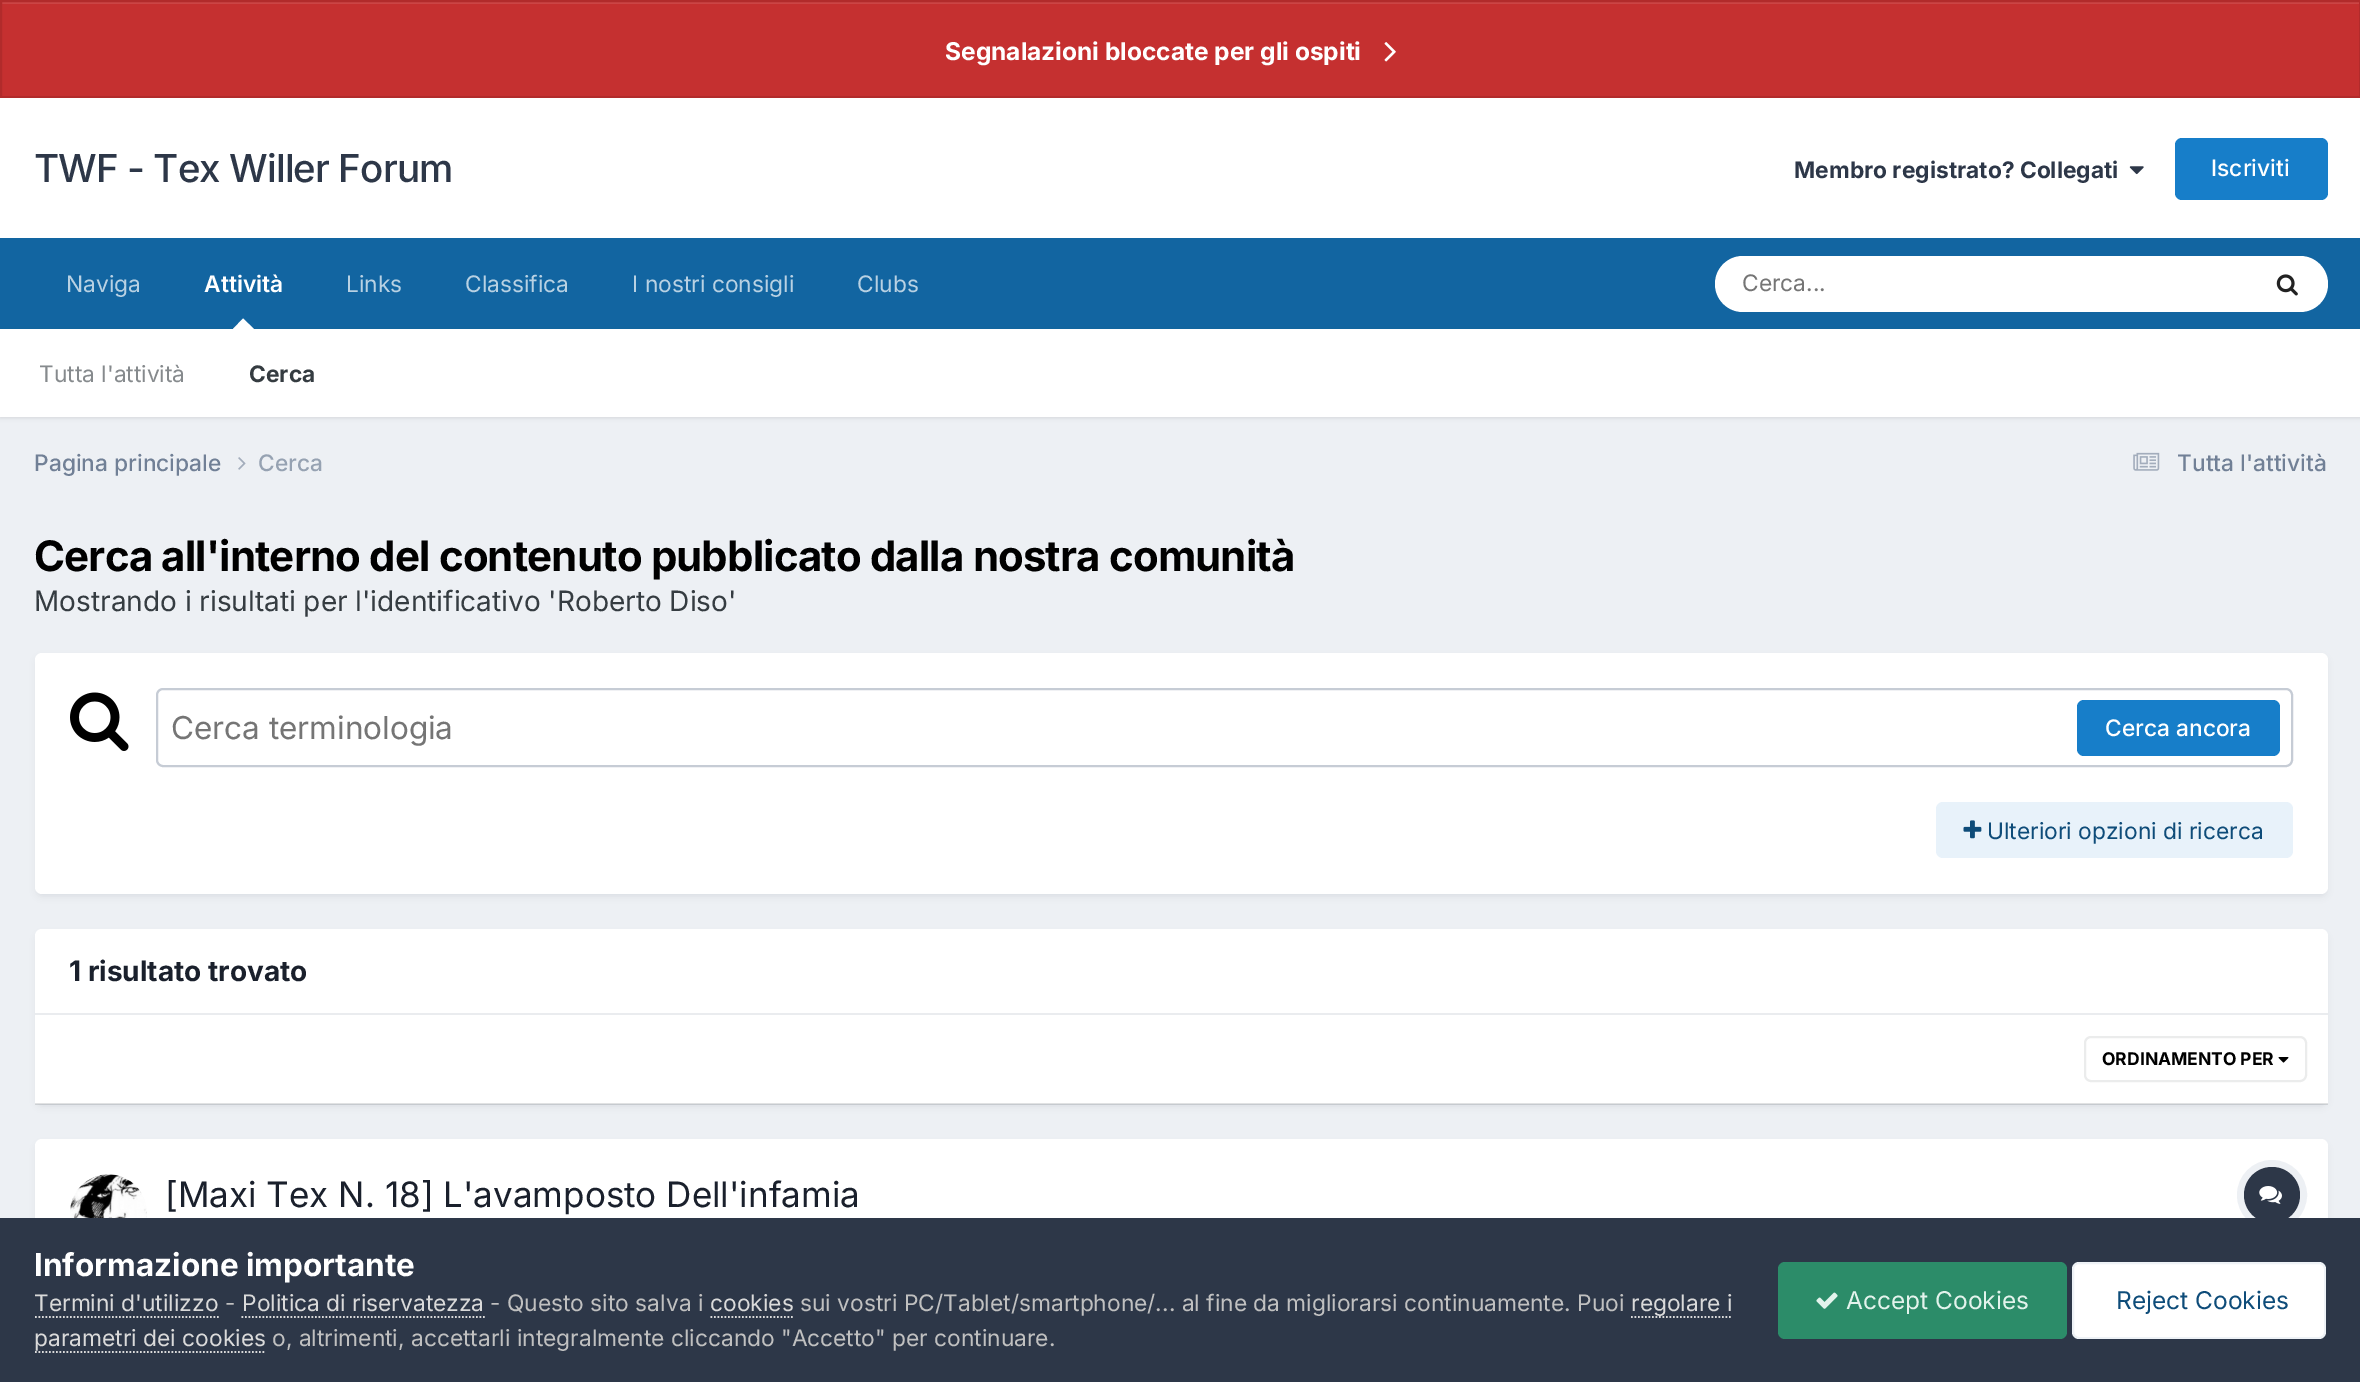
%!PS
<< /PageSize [2360 1382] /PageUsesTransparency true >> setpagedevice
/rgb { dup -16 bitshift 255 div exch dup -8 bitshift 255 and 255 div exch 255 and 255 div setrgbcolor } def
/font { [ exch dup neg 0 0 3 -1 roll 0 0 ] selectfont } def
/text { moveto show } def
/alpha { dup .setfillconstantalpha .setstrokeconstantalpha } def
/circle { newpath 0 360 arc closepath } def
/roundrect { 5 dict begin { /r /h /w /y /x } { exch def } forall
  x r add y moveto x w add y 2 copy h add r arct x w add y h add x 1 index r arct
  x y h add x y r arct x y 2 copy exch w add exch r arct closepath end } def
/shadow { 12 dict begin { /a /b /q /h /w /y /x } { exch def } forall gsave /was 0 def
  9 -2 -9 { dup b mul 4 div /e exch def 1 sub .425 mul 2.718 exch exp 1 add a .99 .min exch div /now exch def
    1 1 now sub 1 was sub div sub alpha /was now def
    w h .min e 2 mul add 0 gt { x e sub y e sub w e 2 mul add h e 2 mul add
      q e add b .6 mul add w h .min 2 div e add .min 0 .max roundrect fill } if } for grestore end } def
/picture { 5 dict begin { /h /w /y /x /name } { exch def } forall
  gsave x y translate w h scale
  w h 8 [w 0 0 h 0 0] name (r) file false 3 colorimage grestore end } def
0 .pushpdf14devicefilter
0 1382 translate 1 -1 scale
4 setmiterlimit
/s1 { /Inter-Bold 24.5 font 16#FFFFFF rgb } def
/s2 { /Inter-Bold 22.75 font 16#2D3748 rgb } def
/s3 { /Inter-Medium 22.75 font 16#FFFFFF rgb } def
/s4 { /Inter-SemiBold 22.75 font 16#FFFFFF rgb } def
/s5 { /Inter-Regular 22.75 font 16#868A8D rgb } def
/s6 { /Inter-Bold 22.75 font 16#353C41 rgb } def
/s7 { /Inter-Regular 22.75 font 16#B8D1E3 rgb } def
/s8 { /Inter-Regular 22.75 font 16#757575 rgb } def
/s9 { /Inter-Medium 22.75 font 16#718096 rgb } def
/s10 { /Inter-Medium 22.75 font 16#96A2B2 rgb } def
/s11 { /Inter-Regular 28 font 16#353C41 rgb } def
/s12 { /Inter-Regular 31.5 font 16#757575 rgb } def
/s13 { /Inter-Regular 22.75 font 16#0E4C79 rgb } def
/s14 { /Inter-Bold 28 font 16#1A202C rgb } def
/s15 { /Inter-Bold 17.5 font 16#000000 rgb } def
/s16 { /Inter-Regular 35 font 16#1A202C rgb } def
/s17 { /Inter-Bold 31.5 font 16#FFFFFF rgb } def
/s18 { /Inter-Regular 22.75 font 16#DADADA rgb } def
/s19 { /Inter-Regular 22.75 font 16#C0C0C0 rgb } def
/s20 { /Inter-Regular 24.5 font 16#E3F3EC rgb } def
/s21 { /Inter-Regular 24.5 font 16#0E4C79 rgb } def
16#EDF0F4 rgb
0 0 2360 1382 rectfill
16#C53030 rgb
2 4 2357 92 rectfill
16#CB4545 rgb
2 2 2357 2 rectfill
16#B12B2B rgb
2 setlinewidth
1 1 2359 96 rectstroke
s1
(Segnalazioni bloccate per gli ospiti) 945 60 text
(pic1.raw) 1384 42 12 20 picture
0 98 2360 140 rectfill
/Inter-Medium 38.5 font
16#2D3748 rgb
34 182 moveto -0.9 0 (TWF - Tex Willer Forum) ashow
s2
(Membro registrato? Collegati) 1794 178 text
(pic2.raw) 2129 166 15 9 picture
16#177EC9 rgb
2175 138 153 62 7 roundrect fill
s3
(Iscriviti) 2211 176 text
16#1265A1 rgb
0 238 2360 91 rectfill
s4
(Attività) 204 292 text
16#000000 rgb
0 331 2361 87 0 2 0.1 shadow
16#FFFFFF rgb
254 329 moveto 233 329 lineto 243 318.5 lineto closepath fill
0 329 2360 88 rectfill
s5
(Tutta l'attività) 39 382 text
s6
(Cerca) 249 382 text
s7
(Naviga) 66 292 text
(Links) 346 292 text
(Classifica) 465 292 text
(I nostri consigli) 632 292 text
(Clubs) 857 292 text
16#FFFFFF rgb
1715 256 613 56 28 roundrect fill
s8
(Cerca...) 1742 291 text
(pic3.raw) 2276 274 22 22 picture
s9
(Pagina principale) 34 471 text
(pic4.raw) 238 457 8 13 picture
s10
(Cerca) 258 471 text
(pic5.raw) 2133 452 27 19 picture
s9
(Tutta l'attività) 2177 471 text
/Inter-Bold 42 font
16#000000 rgb
34 571 moveto -0.85 0 (Cerca all'interno del contenuto pubblicato dalla nostra comunità) ashow
s11
(Mostrando i risultati per l'identificativo 'Roberto Diso') 34 611 text
16#2D3748 rgb
37 658 2289 238 5 3.5 0.1 shadow
16#FFFFFF rgb
35 653 2293 241 7 roundrect fill
(pic6.raw) 70 692 59 59 picture
16#C6CCD5 rgb
157 689 2135 77 6 roundrect stroke
s12
(Cerca terminologia) 171 739 text
16#177EC9 rgb
2077 700 203 56 7 roundrect fill
s3
(Cerca ancora) 2105 736 text
16#E8F2FA rgb
1936 802 357 56 7 roundrect fill
(pic7.raw) 1963 820 19 19 picture
s13
(Ulteriori opzioni di ricerca) 1987 839 text
16#2D3748 rgb
37 935 2289 171 5 3.5 0.1 shadow
16#FFFFFF rgb
42 929 moveto 2321 929 lineto 2325 929 2328 932 2328 936 curveto 2328 1015 lineto 35 1015 lineto 35 936 lineto 35 932 38 929 42 929 curveto closepath fill
16#EAECEF rgb
35 1013 2293 2 rectfill
s14
(1 risultato trovato) 69 981 text
16#FFFFFF rgb
35 1015 2293 89 rectfill
0.15 alpha
16#353C41 rgb
35 1103 2293 2 rectfill
1 alpha
(pic8.raw) 2278 1057 11 6 picture
16#EBECEC rgb
2085 1037 221 44 6 roundrect stroke
s15
(ORDINAMENTO PER) 2102 1065 text
16#2D3748 rgb
37 1145 2289 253 5 3.5 0.1 shadow
16#FFFFFF rgb
35 1139 2293 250 7 roundrect fill
(pic9.raw) 70 1174 77 44 picture
s16
([Maxi Tex N. 18] L'avamposto Dell'infamia) 165 1207 text
16#EDF0F4 rgb
7 setlinewidth
2272 1195 31.5 circle stroke
16#2D3748 rgb
2272 1195 28 circle fill
(pic10.raw) 2259 1186 23 18 picture
0 1218 2360 164 rectfill
s17
(Informazione importante) 34 1276 text
s18
(Termini d'utilizzo) 34 1311 text
1.8 setlinewidth
[1.75 1.75] 0 setdash
35 1317 moveto 219 1317 lineto stroke
s19
(-) 225 1311 text
s18
(Politica di riservatezza) 242 1311 text
241.5 1317 moveto 485 1317 lineto stroke
s19
(- Questo sito salva i) 490 1311 text
s18
(cookies) 710 1311 text
710.5 1317 moveto 793 1317 lineto stroke
s19
(sui vostri PC/Tablet/smartphone/... al fine da migliorarsi continuamente. Puoi) 800 1311 text
s18
(regolare i) 1631 1311 text
1631 1317 moveto 1732.5 1317 lineto stroke
(parametri dei cookies) 34 1346 text
35 1352 moveto 266 1352 lineto stroke
s19
(o, altrimenti, accettarli integralmente cliccando "Accetto" per continuare.) 272 1346 text
16#2C8C69 rgb
1778 1262 289 77 7 roundrect fill
(pic11.raw) 1816 1292 22 17 picture
s20
(Accept Cookies) 1846 1309 text
16#FFFFFF rgb
2072 1262 254 77 7 roundrect fill
0.07 alpha
16#0E4C79 rgb
2 setlinewidth
[] 0 setdash
2073 1263 252 75 6 roundrect stroke
1 alpha
(Reject Cookies) 2116 1309 text
.poppdf14devicefilter showpage
